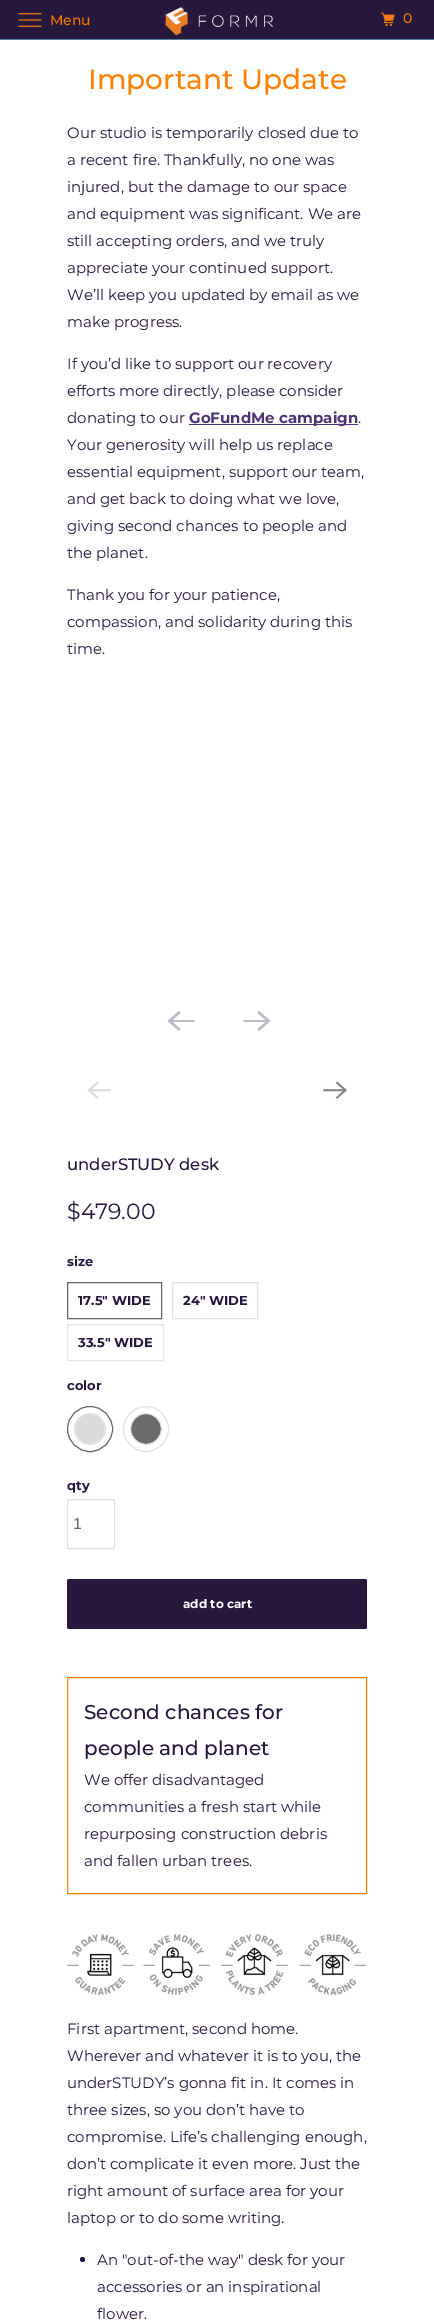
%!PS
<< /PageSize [434 2323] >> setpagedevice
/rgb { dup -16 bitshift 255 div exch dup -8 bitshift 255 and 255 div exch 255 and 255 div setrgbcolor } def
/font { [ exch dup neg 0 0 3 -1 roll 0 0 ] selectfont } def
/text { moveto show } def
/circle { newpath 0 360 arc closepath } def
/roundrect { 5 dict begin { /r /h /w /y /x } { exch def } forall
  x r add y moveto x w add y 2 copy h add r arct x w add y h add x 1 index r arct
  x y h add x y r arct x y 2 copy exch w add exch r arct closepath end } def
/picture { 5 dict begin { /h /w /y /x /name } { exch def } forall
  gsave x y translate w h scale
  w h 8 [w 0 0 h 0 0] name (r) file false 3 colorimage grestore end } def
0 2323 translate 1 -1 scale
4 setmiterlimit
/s1 { /Montserrat-Medium 14 font 16#F47C03 rgb } def
/s2 { /Montserrat-Medium 28 font 16#FF8100 rgb } def
/s3 { /Montserrat-Regular 15 font 16#27173D rgb } def
/s4 { /Montserrat-Bold 15 font 16#4E3376 rgb } def
/s5 { /Montserrat-Medium 16.5 font 16#27173D rgb } def
/s6 { /Montserrat-Regular 22 font 16#27173D rgb } def
/s7 { /Montserrat-Bold 13 font 16#27173D rgb } def
/s8 { /LiberationSans-Regular 16 font 16#5F6A7D rgb } def
/s9 { /Montserrat-Bold 12 font 16#FFFFFF rgb } def
/s10 { /Montserrat-Medium 20 font 16#27173D rgb } def
16#27173D rgb
0 0 434 2323 rectfill
16#5682A5 rgb
0 39 434 1 rectfill
(pic1.raw) 18 13 24 14 picture
s1
(Menu) 50 25 text
(pic2.raw) 161 5 112 30 picture
(pic3.raw) 381 12 14 15 picture
(0) 403 23 text
16#FFFFFF rgb
0 40 434 2283 rectfill
s2
(Important Update) 88 89 text
s3
(Our studio is temporarily closed due to) 67 138 text
(a recent fire. Thankfully, no one was) 67 165 text
(injured, but the damage to our space) 67 192 text
(and equipment was significant. We are) 67 219 text
(still accepting orders, and we truly) 67 246 text
(appreciate your continued support.) 67 273 text
(We’ll keep you updated by email as we) 67 300 text
(make progress.) 67 327 text
(If you’d like to support our recovery) 67 369 text
(efforts more directly, please consider) 67 396 text
(donating to our) 67 423 text
16#4E3376 rgb
189 424 169 1 rectfill
s4
(GoFundMe campaign) 189 423 text
s3
(.) 358 423 text
(Your generosity will help us replace) 67 450 text
(essential equipment, support our team,) 67 477 text
(and get back to doing what we love,) 67 504 text
(giving second chances to people and) 67 531 text
(the planet.) 67 558 text
(Thank you for your patience,) 67 600 text
(compassion, and solidarity during this) 67 627 text
(time.) 67 654 text
16#BEB9C5 rgb
194.5 1020 moveto 172.5 1020 lineto 180.5 1013 lineto 179 1011 lineto 167.5 1021 lineto 179 1031 lineto 180.5 1029 lineto 172.5 1022 lineto 194.5 1022 lineto closepath fill
243.5 1022 moveto 265.5 1022 lineto 257.5 1029 lineto 259 1031 lineto 270.5 1021 lineto 259 1011 lineto 257.5 1013 lineto 265.5 1020 lineto 243.5 1020 lineto closepath fill
(pic4.raw) 87 1081 24 18 picture
(pic5.raw) 323 1081 24 18 picture
s5
(underSTUDY desk) 67 1170 text
s6
($479.00) 67 1219 text
s7
(size) 67 1266 text
16#666666 rgb
67.5 1282.5 94 36 rectstroke
s7
(17.5" WIDE) 78 1305 text
16#E2E2E2 rgb
172.5 1282.5 85 36 rectstroke
s7
(24" WIDE) 183 1305 text
16#E2E2E2 rgb
67.5 1324.5 96 36 rectstroke
s7
(33.5" WIDE) 78 1347 text
(color) 67 1390 text
16#666666 rgb
90 1429 22.5 circle stroke
(pic6.raw) 75 1414 30 30 picture
16#E2E2E2 rgb
90 1429 15.5 circle stroke
146 1429 22.5 circle stroke
(pic7.raw) 131 1414 30 30 picture
146 1429 15.5 circle stroke
s7
(qty) 67 1490 text
16#DFDFDF rgb
67.5 1499.5 47 49 1.5 roundrect stroke
s8
(1) 73 1529 text
16#27173D rgb
67 1579 300 50 2 roundrect fill
s9
(add to cart) 183 1608 text
16#FF8100 rgb
67.5 1677.5 299 216 rectstroke
s10
(Second chances for) 84 1719 text
(people and planet) 84 1755 text
s3
(We offer disadvantaged) 84 1785 text
(communities a fresh start while) 84 1812 text
(repurposing construction debris) 84 1839 text
(and fallen urban trees.) 84 1866 text
(pic8.raw) 67 1934 300 61 picture
(First apartment, second home.) 67 2034 text
(Wherever and whatever it is to you, the) 67 2061 text
(underSTUDY’s gonna fit in. It comes in) 67 2088 text
(three sizes, so you don’t have to) 67 2115 text
(compromise. Life’s challenging enough,) 67 2142 text
(don’t complicate it even more. Just the) 67 2169 text
(right amount of surface area for your) 67 2196 text
(laptop or to do some writing.) 67 2223 text
82.5 2259.5 2.5 circle fill
(An "out-of-the way" desk for your) 97 2265 text
(accessories or an inspirational) 97 2292 text
(flower.) 97 2319 text
showpage
